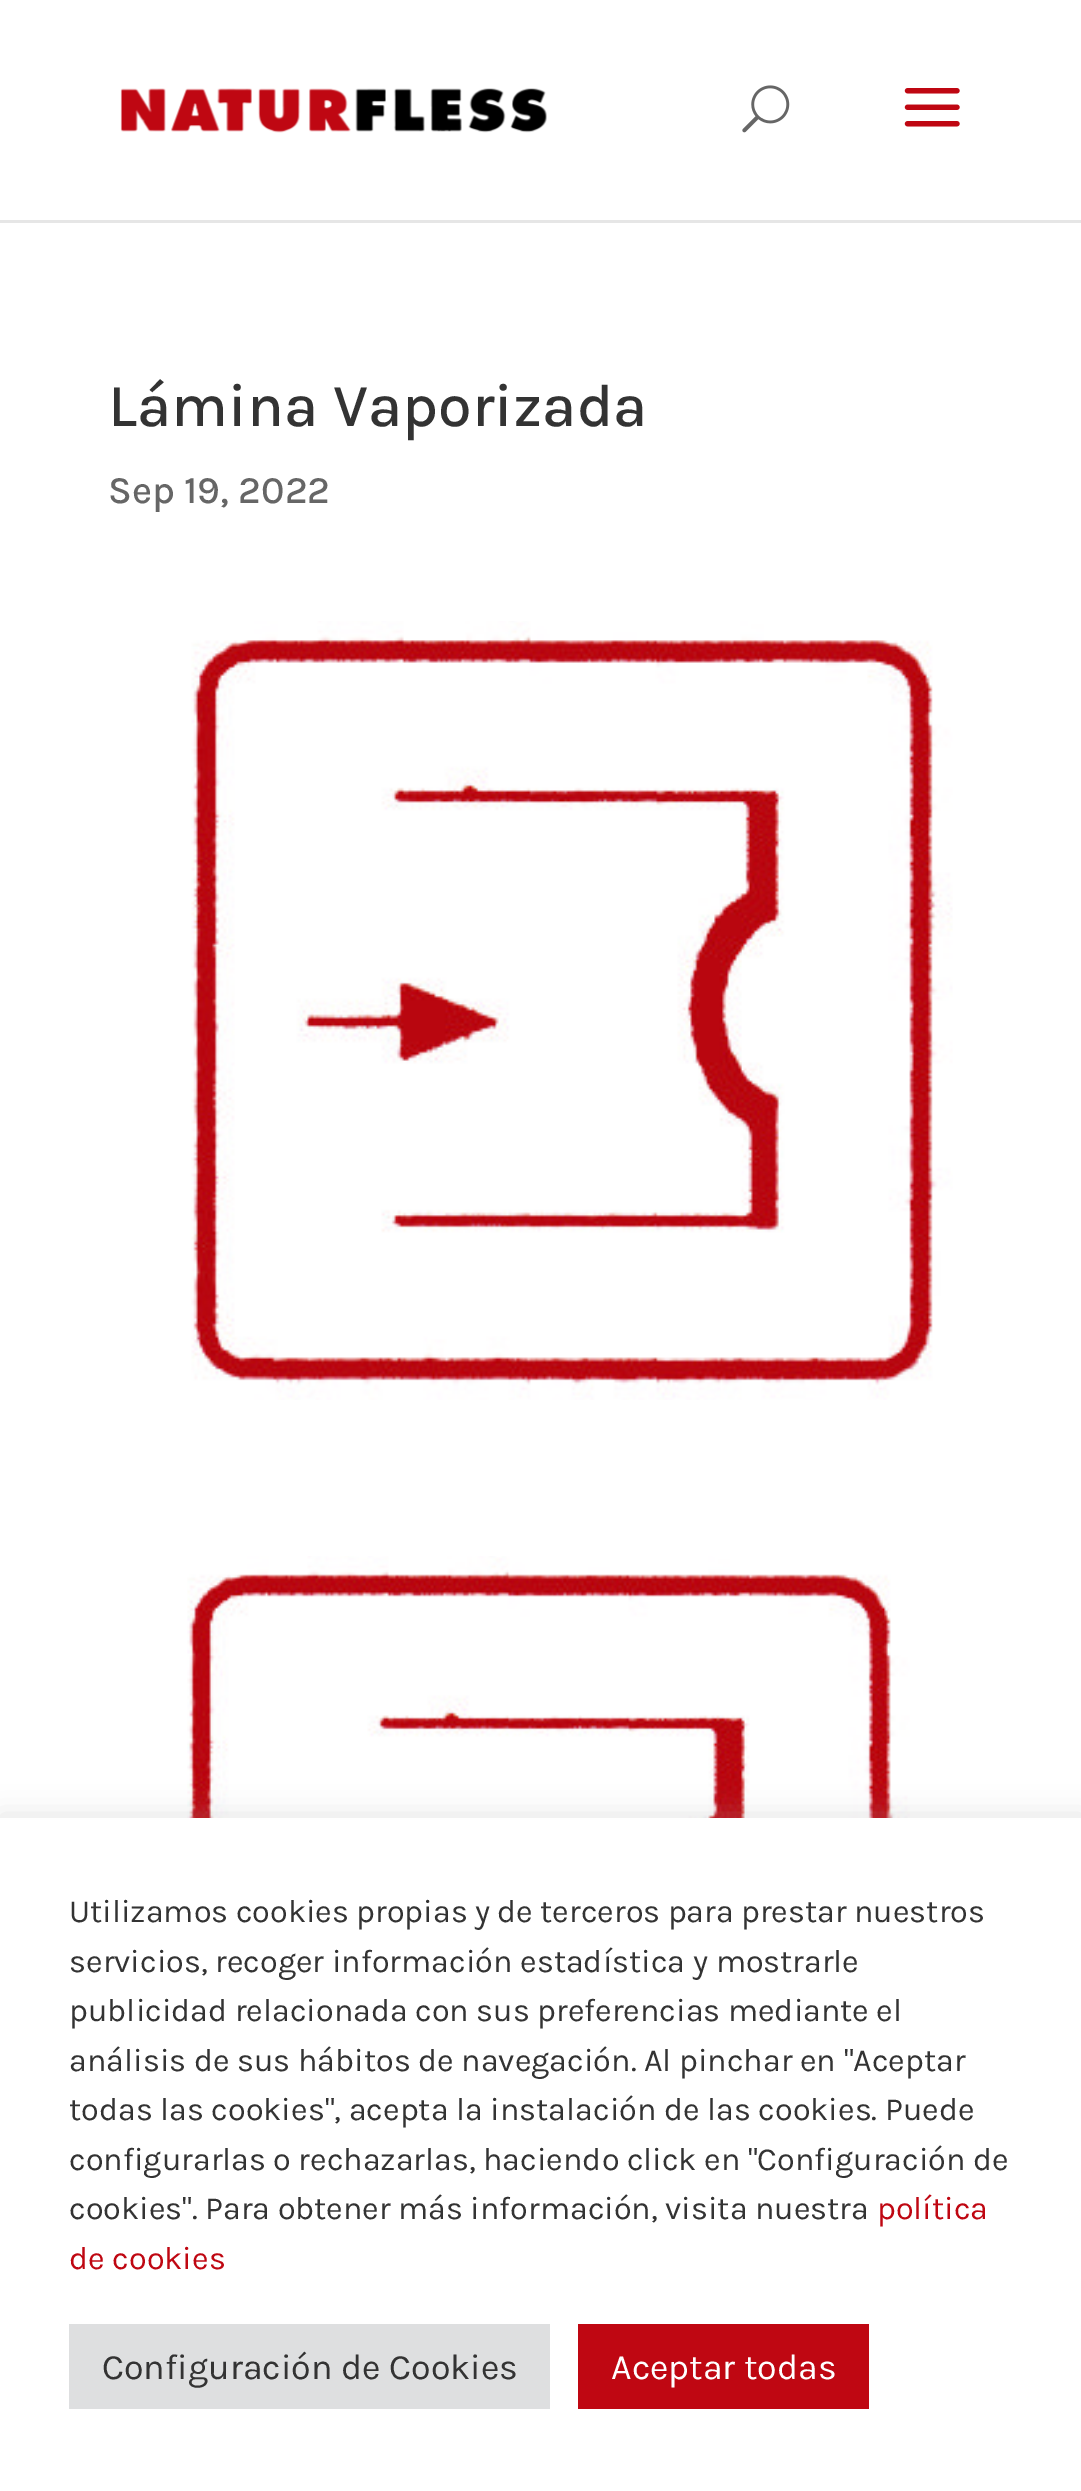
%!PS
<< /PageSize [1081 2491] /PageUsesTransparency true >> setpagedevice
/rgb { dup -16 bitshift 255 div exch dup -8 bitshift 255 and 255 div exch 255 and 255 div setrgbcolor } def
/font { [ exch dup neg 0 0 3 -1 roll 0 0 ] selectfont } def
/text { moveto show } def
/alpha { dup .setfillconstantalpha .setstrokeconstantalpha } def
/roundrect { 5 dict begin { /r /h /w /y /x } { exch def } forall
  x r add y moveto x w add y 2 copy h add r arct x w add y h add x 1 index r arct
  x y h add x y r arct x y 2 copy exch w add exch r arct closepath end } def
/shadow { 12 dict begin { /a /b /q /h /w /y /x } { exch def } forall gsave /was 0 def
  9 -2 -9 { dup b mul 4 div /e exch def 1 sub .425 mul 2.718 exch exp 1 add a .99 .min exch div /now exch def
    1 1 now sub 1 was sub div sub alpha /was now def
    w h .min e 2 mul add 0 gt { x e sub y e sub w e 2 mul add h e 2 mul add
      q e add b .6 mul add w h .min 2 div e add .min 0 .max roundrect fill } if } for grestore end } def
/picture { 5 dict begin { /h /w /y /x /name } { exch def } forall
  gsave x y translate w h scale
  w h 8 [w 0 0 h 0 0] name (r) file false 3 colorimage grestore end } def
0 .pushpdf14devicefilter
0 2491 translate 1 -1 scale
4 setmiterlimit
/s1 { /Karla-Medium 60.5 font 16#333333 rgb } def
/s2 { /Karla-Medium 38.5 font 16#666666 rgb } def
/s3 { /Karla-Regular 32.25 font 16#333333 rgb } def
/s4 { /Karla-Regular 32.25 font 16#BF0712 rgb } def
/s5 { /Karla-Regular 35.75 font 16#333333 rgb } def
/s6 { /Karla-Regular 35.75 font 16#FFFFFF rgb } def
16#FFFFFF rgb
0 0 1081 2491 rectfill
16#E6E6E6 rgb
0 220 moveto 0 223 lineto 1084 223 lineto 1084 3 lineto 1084 220 lineto closepath fill
(pic1.raw) 120 88 427 45 picture
(pic2.raw) 742 85 48 48 picture
(pic3.raw) 904 88 56 39 picture
s1
(Lámina Vaporizada) 108 426 text
s2
(Sep 19, 2022) 108 503 text
(pic4.raw) 191 621 762 779 picture
(pic5.raw) 187 1556 723 262 picture
16#ACABAB rgb
0 1815 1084 674 0 14 0.3 shadow
16#FFFFFF rgb
0 1818 1081 673 rectfill
/Karla-Regular 32.25 font
16#333333 rgb
69 1922 moveto -0.25 0 32 (Utilizamos cookies propias y de terceros para prestar nuestros) widthshow
(servicios, recoger información estadística y mostrarle) 69 1972 text
69 2021 moveto -0.25 0 32 (publicidad relacionada con sus preferencias mediante el) widthshow
69 2071 moveto -0.1 0 32 (análisis de sus hábitos de navegación. Al pinchar en "Aceptar) widthshow
69 2120 moveto -0.1 0 32 (todas las cookies", acepta la instalación de las cookies. Puede) widthshow
69 2170 moveto -0.25 0 32 (configurarlas o rechazarlas, haciendo click en "Configuración de) widthshow
69 2219 moveto -0.25 0 32 (cookies". Para obtener más información, visita nuestra) widthshow
s4
(política) 877 2219 text
(de cookies) 69 2269 text
16#DEDFE0 rgb
69 2324 481 85 rectfill
s5
(Configuración de Cookies) 102 2379 text
16#BF0712 rgb
578 2324 291 85 rectfill
s6
(Aceptar todas) 611 2379 text
.poppdf14devicefilter showpage
